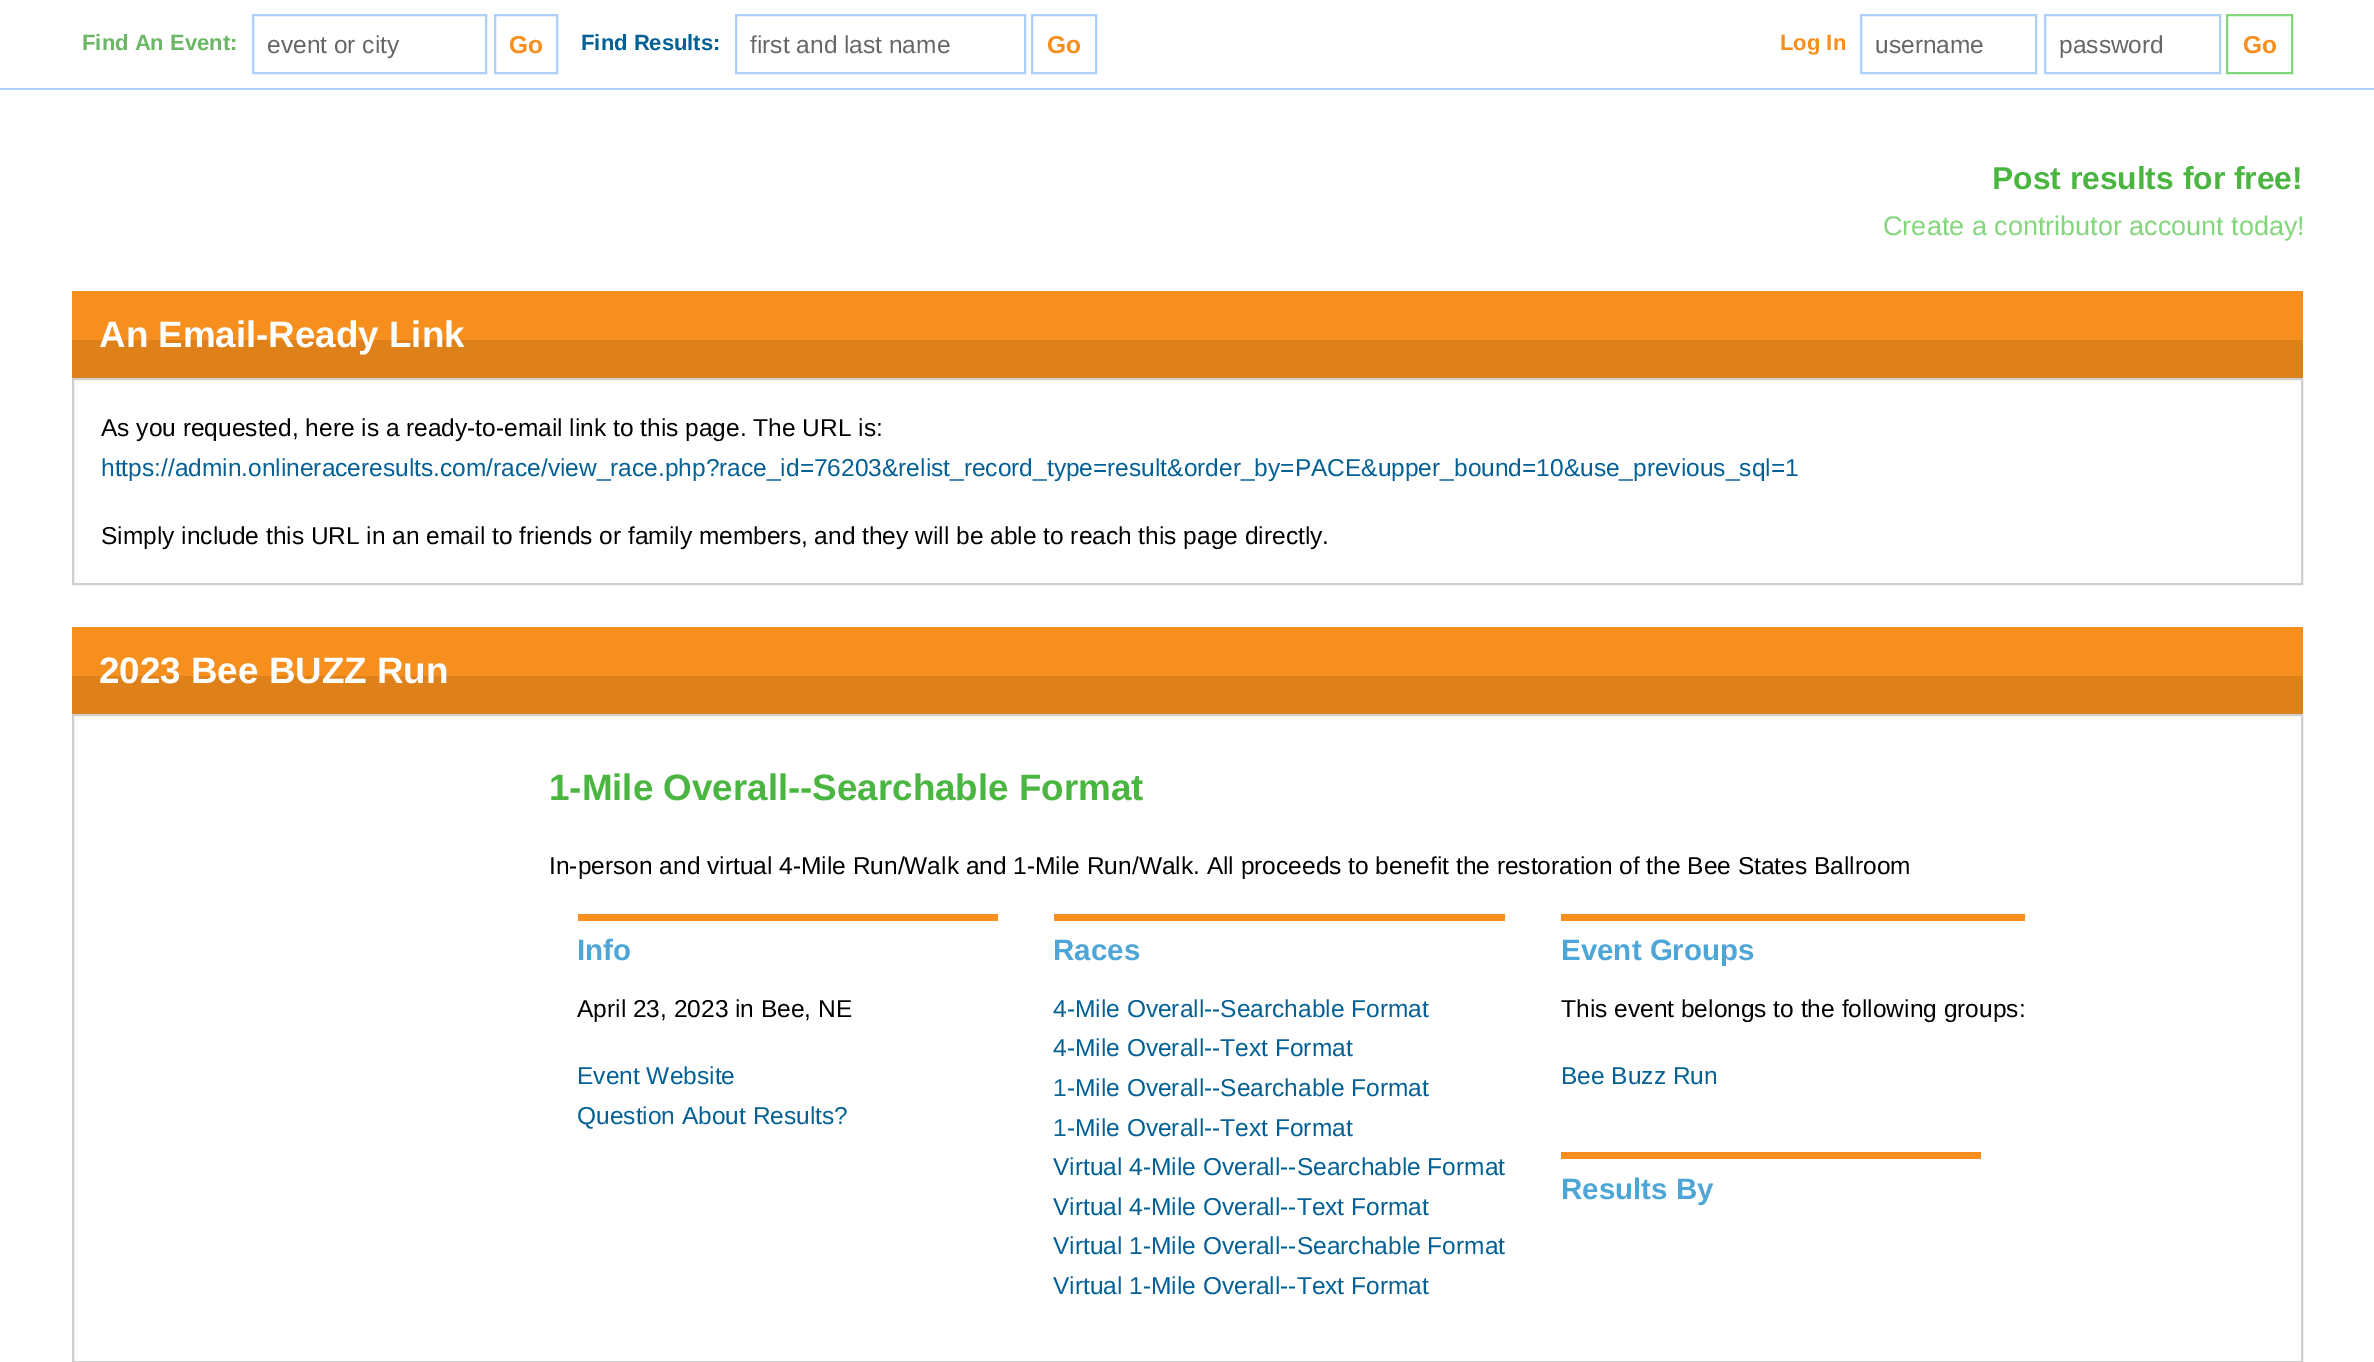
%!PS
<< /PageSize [2374 1362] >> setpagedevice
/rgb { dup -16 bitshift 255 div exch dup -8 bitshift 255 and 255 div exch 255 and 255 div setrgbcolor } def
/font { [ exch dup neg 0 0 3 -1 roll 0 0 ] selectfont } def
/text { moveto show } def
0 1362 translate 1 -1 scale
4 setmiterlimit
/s1 { /LiberationSans-Bold 22 font 16#6BB766 rgb } def
/s2 { /LiberationSans-Regular 24.5 font 16#666666 rgb } def
/s3 { /LiberationSans-Bold 24.5 font 16#F78F1E rgb } def
/s4 { /LiberationSans-Bold 22 font 16#036095 rgb } def
/s5 { /LiberationSans-Bold 22 font 16#F78F1E rgb } def
/s6 { /LiberationSans-Bold 31.75 font 16#4AB641 rgb } def
/s7 { /LiberationSans-Regular 27 font 16#84D67D rgb } def
/s8 { /LiberationSans-Bold 36.75 font 16#FFFFFF rgb } def
/s9 { /LiberationSans-Regular 24.5 font 16#000000 rgb } def
/s10 { /LiberationSans-Regular 24.5 font 16#036095 rgb } def
/s11 { /LiberationSans-Bold 36.75 font 16#4AB641 rgb } def
/s12 { /LiberationSans-Bold 29.5 font 16#4DA6D6 rgb } def
16#FFFFFF rgb
0 0 2374 1362 rectfill
16#ACD0F7 rgb
0 88 2374 2 rectfill
s1
(Find An Event:) 82 50 text
16#ACD0F7 rgb
2 setlinewidth
253 15 233 58 rectstroke
s2
(event or city) 267 53 text
16#ACD0F7 rgb
495 15 62 58 rectstroke
s3
(Go) 509 53 text
s4
(Find Results:) 581 50 text
16#ACD0F7 rgb
736 15 289 58 rectstroke
s2
(first and last name) 750 53 text
16#ACD0F7 rgb
1032 15 64 58 rectstroke
s3
(Go) 1047 53 text
s5
(Log In) 1780 50 text
16#ACD0F7 rgb
1861 15 175 58 rectstroke
s2
(username) 1875 53 text
16#ACD0F7 rgb
2045 15 175 58 rectstroke
s2
(password) 2059 53 text
16#84D67D rgb
2227 15 65 58 rectstroke
s3
(Go) 2243 53 text
s6
(Post results for free!) 1992 189 text
s7
(Create a contributor account today!) 1883 235 text
16#F78F1E rgb
72 291 2231 49 rectfill
16#DE811B rgb
72 340 2231 38 rectfill
s8
(An Email-Ready Link) 99 347 text
16#CFCFCF rgb
73 379 2229 205 rectstroke
s9
(As you requested, here is a ready-to-email link to this page. The URL is:) 101 436 text
s10
(https://admin.onlineraceresults.com/race/view_race.php?race_id=76203&relist_record_type=result&order_by=PACE&upper_bound=10&use_previous_sql=1) 101 476 text
s9
(Simply include this URL in an email to friends or family members, and they will be able to reach this page directly.) 101 544 text
16#F78F1E rgb
72 627 2231 49 rectfill
16#DE811B rgb
72 676 2231 38 rectfill
s8
(2023 Bee BUZZ Run) 99 683 text
16#CFCFCF rgb
73 715 2229 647 rectstroke
s11
(1-Mile Overall--Searchable Format) 549 800 text
s9
(In-person and virtual 4-Mile Run/Walk and 1-Mile Run/Walk. All proceeds to benefit the restoration of the Bee States Ballroom) 549 874 text
16#F78F1E rgb
578 914 420 7 rectfill
s12
(Info) 577 960 text
s9
(April 23, 2023 in Bee, NE) 577 1017 text
s10
(Event Website) 577 1084 text
(Question About Results?) 577 1124 text
16#F78F1E rgb
1054 914 451 7 rectfill
s12
(Races) 1053 960 text
s10
(4-Mile Overall--Searchable Format) 1053 1017 text
(4-Mile Overall--Text Format) 1053 1056 text
(1-Mile Overall--Searchable Format) 1053 1096 text
(1-Mile Overall--Text Format) 1053 1136 text
(Virtual 4-Mile Overall--Searchable Format) 1053 1175 text
(Virtual 4-Mile Overall--Text Format) 1053 1215 text
(Virtual 1-Mile Overall--Searchable Format) 1053 1254 text
(Virtual 1-Mile Overall--Text Format) 1053 1294 text
16#F78F1E rgb
1561 914 464 7 rectfill
s12
(Event Groups) 1561 960 text
s9
(This event belongs to the following groups:) 1561 1017 text
s10
(Bee Buzz Run) 1561 1084 text
16#F78F1E rgb
1561 1152 420 7 rectfill
s12
(Results By) 1561 1199 text
showpage
